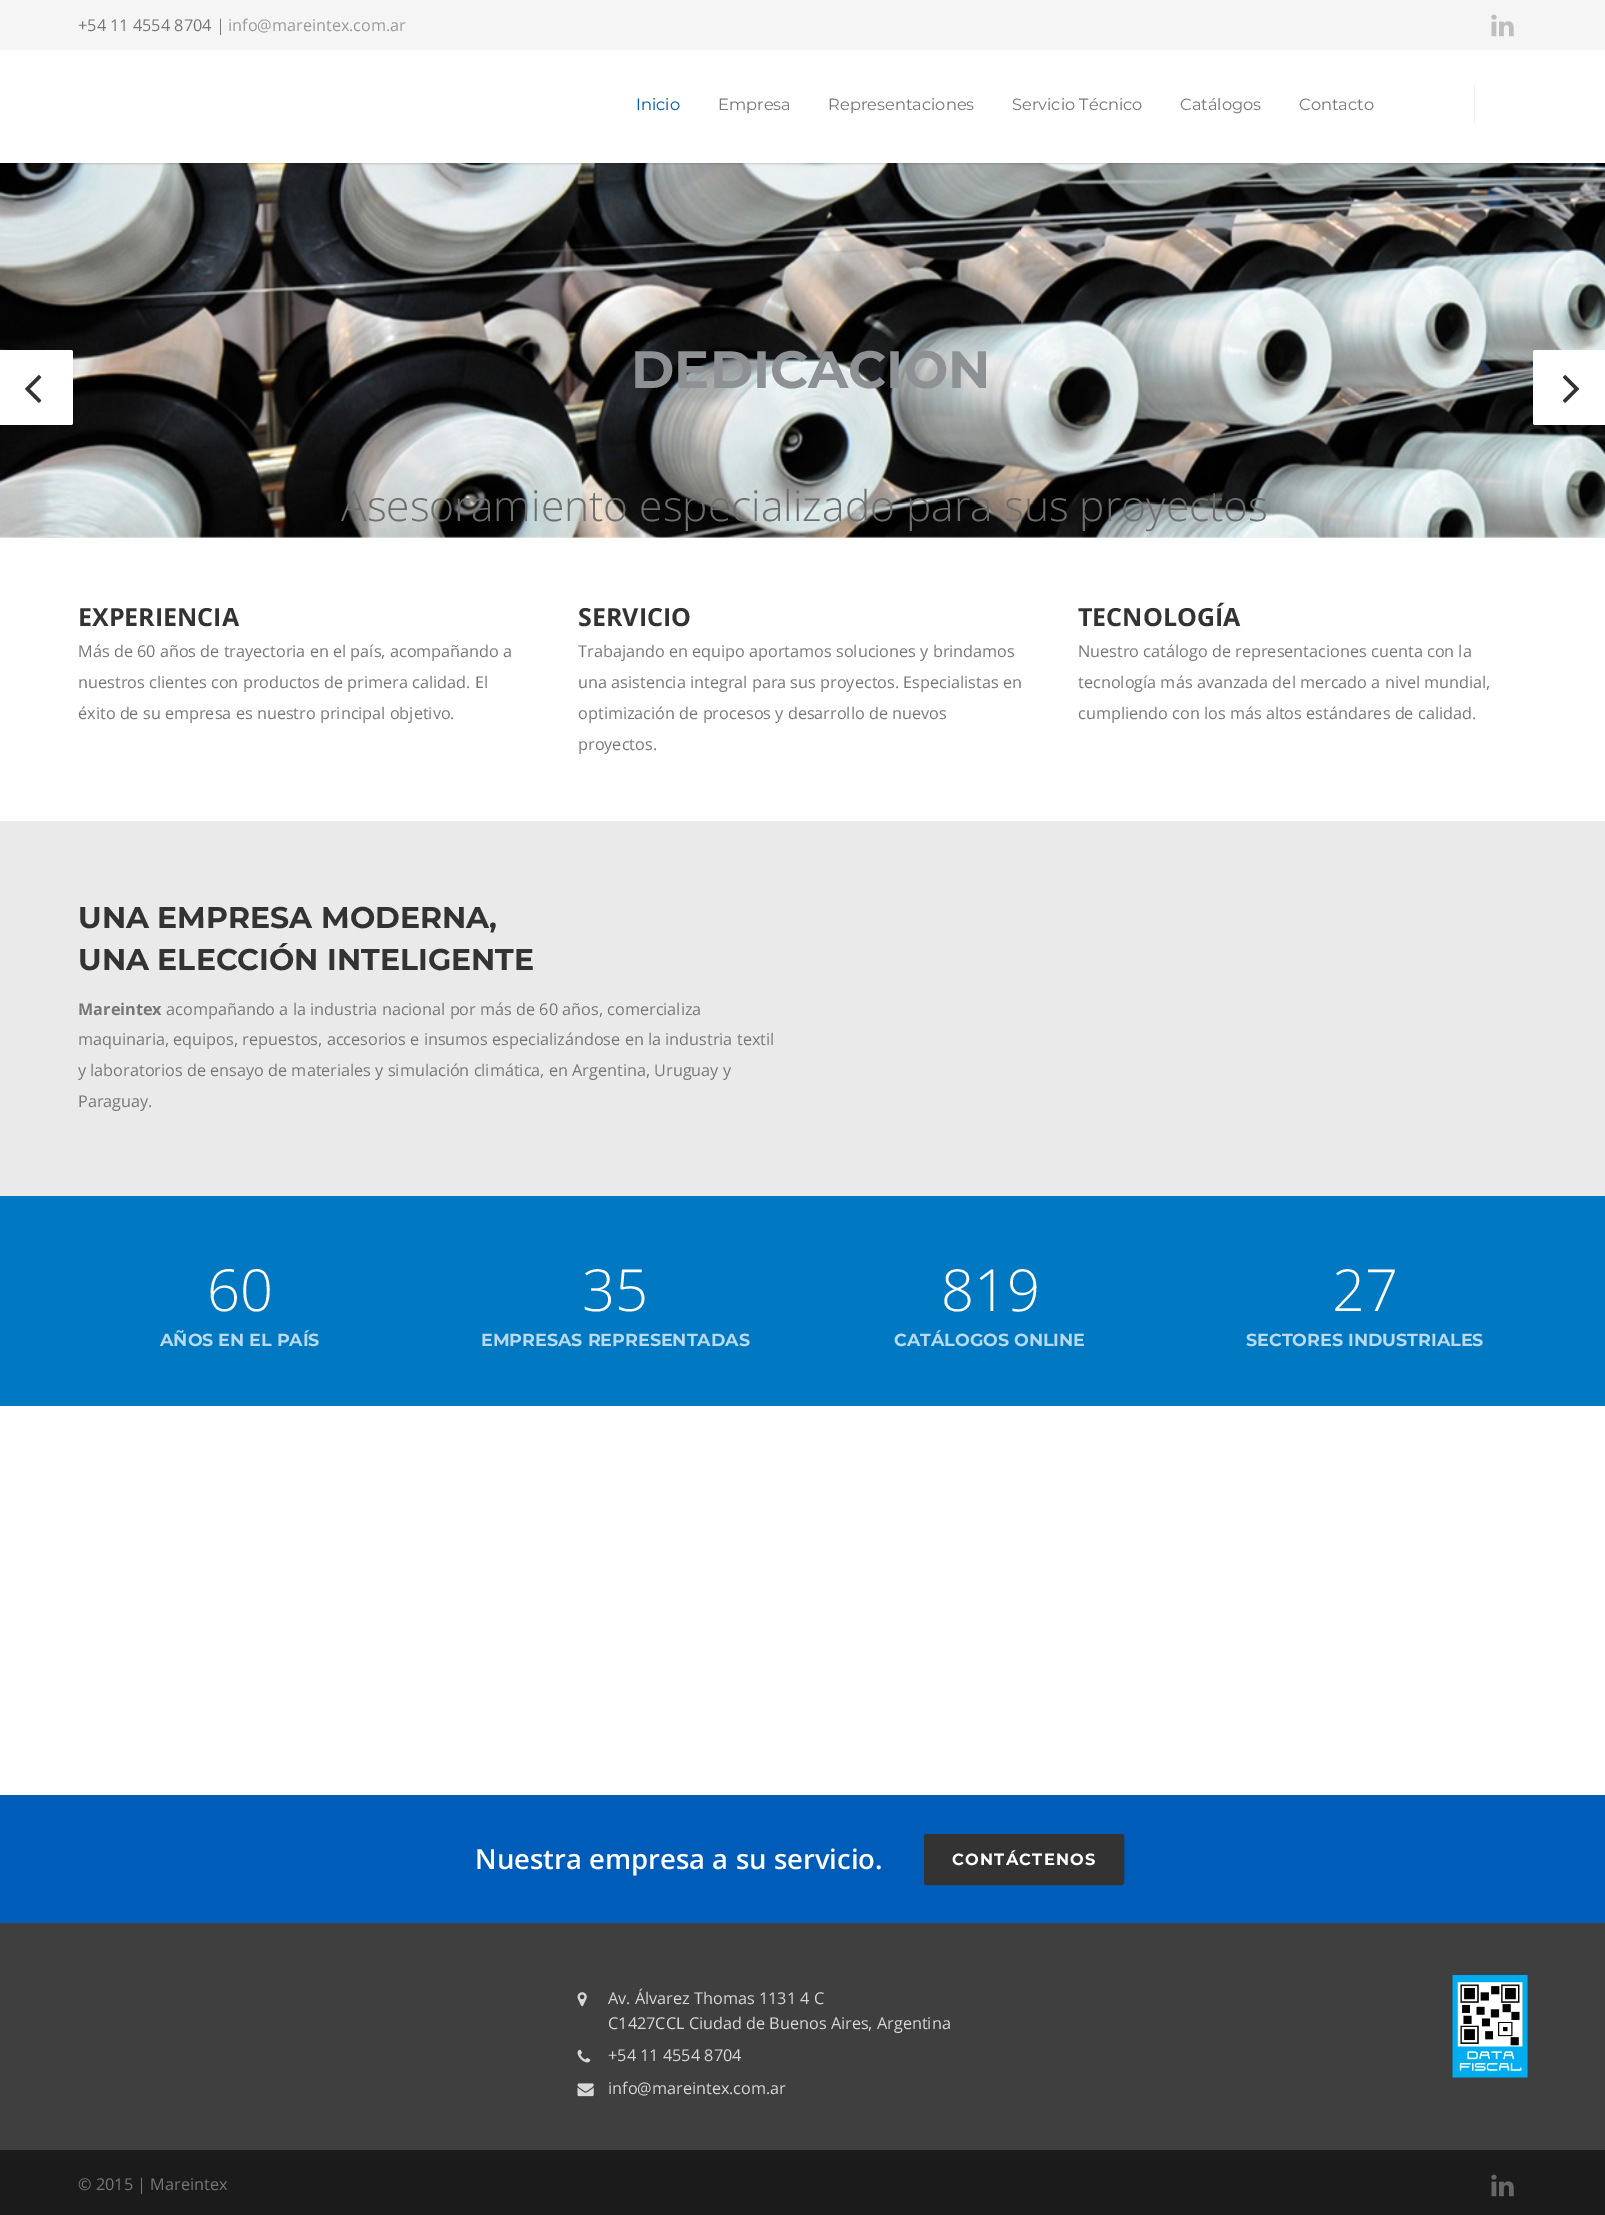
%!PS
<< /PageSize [1605 2215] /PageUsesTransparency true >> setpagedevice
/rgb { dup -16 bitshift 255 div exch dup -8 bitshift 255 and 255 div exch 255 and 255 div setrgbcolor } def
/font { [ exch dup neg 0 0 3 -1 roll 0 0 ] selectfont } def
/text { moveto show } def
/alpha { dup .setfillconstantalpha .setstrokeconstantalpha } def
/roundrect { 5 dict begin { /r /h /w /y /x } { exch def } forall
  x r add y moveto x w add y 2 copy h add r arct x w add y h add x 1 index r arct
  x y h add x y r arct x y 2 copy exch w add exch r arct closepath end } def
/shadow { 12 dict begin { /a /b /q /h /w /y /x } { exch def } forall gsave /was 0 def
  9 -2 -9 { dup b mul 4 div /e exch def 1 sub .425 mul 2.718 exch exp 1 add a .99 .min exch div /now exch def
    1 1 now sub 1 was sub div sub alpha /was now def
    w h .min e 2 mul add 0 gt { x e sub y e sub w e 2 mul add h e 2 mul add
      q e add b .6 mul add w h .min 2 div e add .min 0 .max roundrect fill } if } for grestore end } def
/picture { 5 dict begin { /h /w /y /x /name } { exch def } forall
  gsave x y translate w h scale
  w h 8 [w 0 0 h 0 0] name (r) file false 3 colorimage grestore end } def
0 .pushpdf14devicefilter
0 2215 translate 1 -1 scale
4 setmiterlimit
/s1 { /OpenSans-Regular 16.25 font 16#777777 rgb } def
/s2 { /OpenSans-Regular 16.25 font 16#999999 rgb } def
/s3 { /Montserrat-Regular 16.25 font 16#005CB9 rgb } def
/s4 { /Montserrat-Regular 16.25 font 16#777777 rgb } def
/s5 { /Montserrat-Bold 52.5 font 16#8D9193 rgb } def
/s6 { /OpenSans-Light 42.5 font 16#6C6E6D rgb } def
/s7 { /OpenSans-Bold 25 font 16#333333 rgb } def
/s8 { /Montserrat-Bold 30 font 16#333333 rgb } def
/s9 { /OpenSans-Bold 16.25 font 16#777777 rgb } def
/s10 { /OpenSans-Light 58 font 16#FFFFFF rgb } def
/s11 { /Montserrat-Bold 17.5 font 16#B8D9EE rgb } def
/s12 { /OpenSans-SemiBold 27.5 font 16#FFFFFF rgb } def
/s13 { /OpenSans-Regular 16.25 font 16#D8D8D8 rgb } def
16#FFFFFF rgb
0 0 1605 2215 rectfill
16#F0F0F0 rgb
0 536 1605 2 rectfill
(pic3.raw) 0 163 1605 375 picture
16#000000 rgb
-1 49 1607 115 0 1 0.16 shadow
16#F5F5F5 rgb
0 0 1605 50 rectfill
s1
(+54 11 4554 8704 |) 78 31 text
s2
(info@mareintex.com.ar) 228 31 text
(pic1.raw) 1491 14 23 23 picture
16#FFFFFF rgb
0 50 1605 113 rectfill
s3
(Inicio) 636 110 text
s4
(Empresa) 718 110 text
(Representaciones) 828 110 text
(Servicio Técnico) 1012 110 text
(Catálogos) 1180 110 text
(Contacto) 1299 110 text
16#EFEFEF rgb
1474 85 1 38 rectfill
16#FFFFFF rgb
0 350 moveto 70.5 350 lineto 72 350 73 351 73 352.5 curveto 73 422.5 lineto 73 424 72 425 70.5 425 curveto 0 425 lineto closepath fill
(pic2.raw) 25 375 17 28 picture
s5
(DEDICACIÓN) 631 388 text
s6
(Asesoramiento especializado para sus proyectos) 341 521 text
16#FFFFFF rgb
1535.5 350 moveto 1605 350 lineto 1605 425 lineto 1535.5 425 lineto 1534 425 1533 424 1533 422.5 curveto 1533 352.5 lineto 1533 351 1534 350 1535.5 350 curveto closepath fill
(pic4.raw) 1562 375 17 28 picture
s7
(EXPERIENCIA) 78 626 text
s1
(Más de 60 años de trayectoria en el país, acompañando a) 78 657 text
(nuestros clientes con productos de primera calidad. El) 78 688 text
(éxito de su empresa es nuestro principal objetivo.) 78 719 text
s7
(SERVICIO) 578 626 text
s1
(Trabajando en equipo aportamos soluciones y brindamos) 578 657 text
(una asistencia integral para sus proyectos. Especialistas en) 578 688 text
(optimización de procesos y desarrollo de nuevos) 578 719 text
(proyectos.) 578 750 text
s7
(TECNOLOGÍA) 1078 626 text
s1
(Nuestro catálogo de representaciones cuenta con la) 1078 657 text
(tecnología más avanzada del mercado a nivel mundial,) 1078 688 text
(cumpliendo con los más altos estándares de calidad.) 1078 719 text
16#EAEAEA rgb
0 821 1605 375 rectfill
s8
(UNA EMPRESA MODERNA,) 78 928 text
(UNA ELECCIÓN INTELIGENTE) 78 970 text
s9
(Mareintex) 78 1015 text
s1
(acompañando a la industria nacional por más de 60 años, comercializa) 166 1015 text
(maquinaria, equipos, repuestos, accesorios e insumos especializándose en la industria textil) 78 1045 text
(y laboratorios de ensayo de materiales y simulación climática, en Argentina, Uruguay y) 78 1076 text
(Paraguay.) 78 1107 text
16#0079C2 rgb
0 1196 1605 210 rectfill
s10
(60) 207 1311 text
s11
(AÑOS EN EL PAÍS) 160 1346 text
s10
(35) 582 1311 text
s11
(EMPRESAS REPRESENTADAS) 481 1346 text
s10
(819) 941 1311 text
s11
(CATÁLOGOS ONLINE) 894 1346 text
s10
(27) 1332 1311 text
s11
(SECTORES INDUSTRIALES) 1246 1346 text
16#005CB9 rgb
0 1795 1605 128 rectfill
s12
(Nuestra empresa a su servicio.) 475 1869 text
16#333333 rgb
925.5 1835.5 197 48 1 roundrect gsave fill grestore
3 setlinewidth
stroke
/Montserrat-Bold 16.25 font
16#FFFFFF rgb
952 1865 moveto 1.25 0 (CONTÁCTENOS) ashow
16#3F3F3F rgb
0 1923 1605 227 rectfill
(pic5.raw) 577 1992 10 15 picture
s13
(Av. Álvarez Thomas 1131 4 C) 608 2004 text
(C1427CCL Ciudad de Buenos Aires, Argentina) 608 2029 text
(pic6.raw) 577 2049 14 14 picture
(+54 11 4554 8704) 608 2061 text
(pic7.raw) 577 2083 17 14 picture
(info@mareintex.com.ar) 608 2094 text
(pic8.raw) 1452 1975 76 103 picture
16#1B1B1B rgb
0 2150 1605 65 rectfill
s1
(© 2015 | Mareintex) 78 2190 text
(pic9.raw) 1491 2174 23 23 picture
.poppdf14devicefilter showpage
